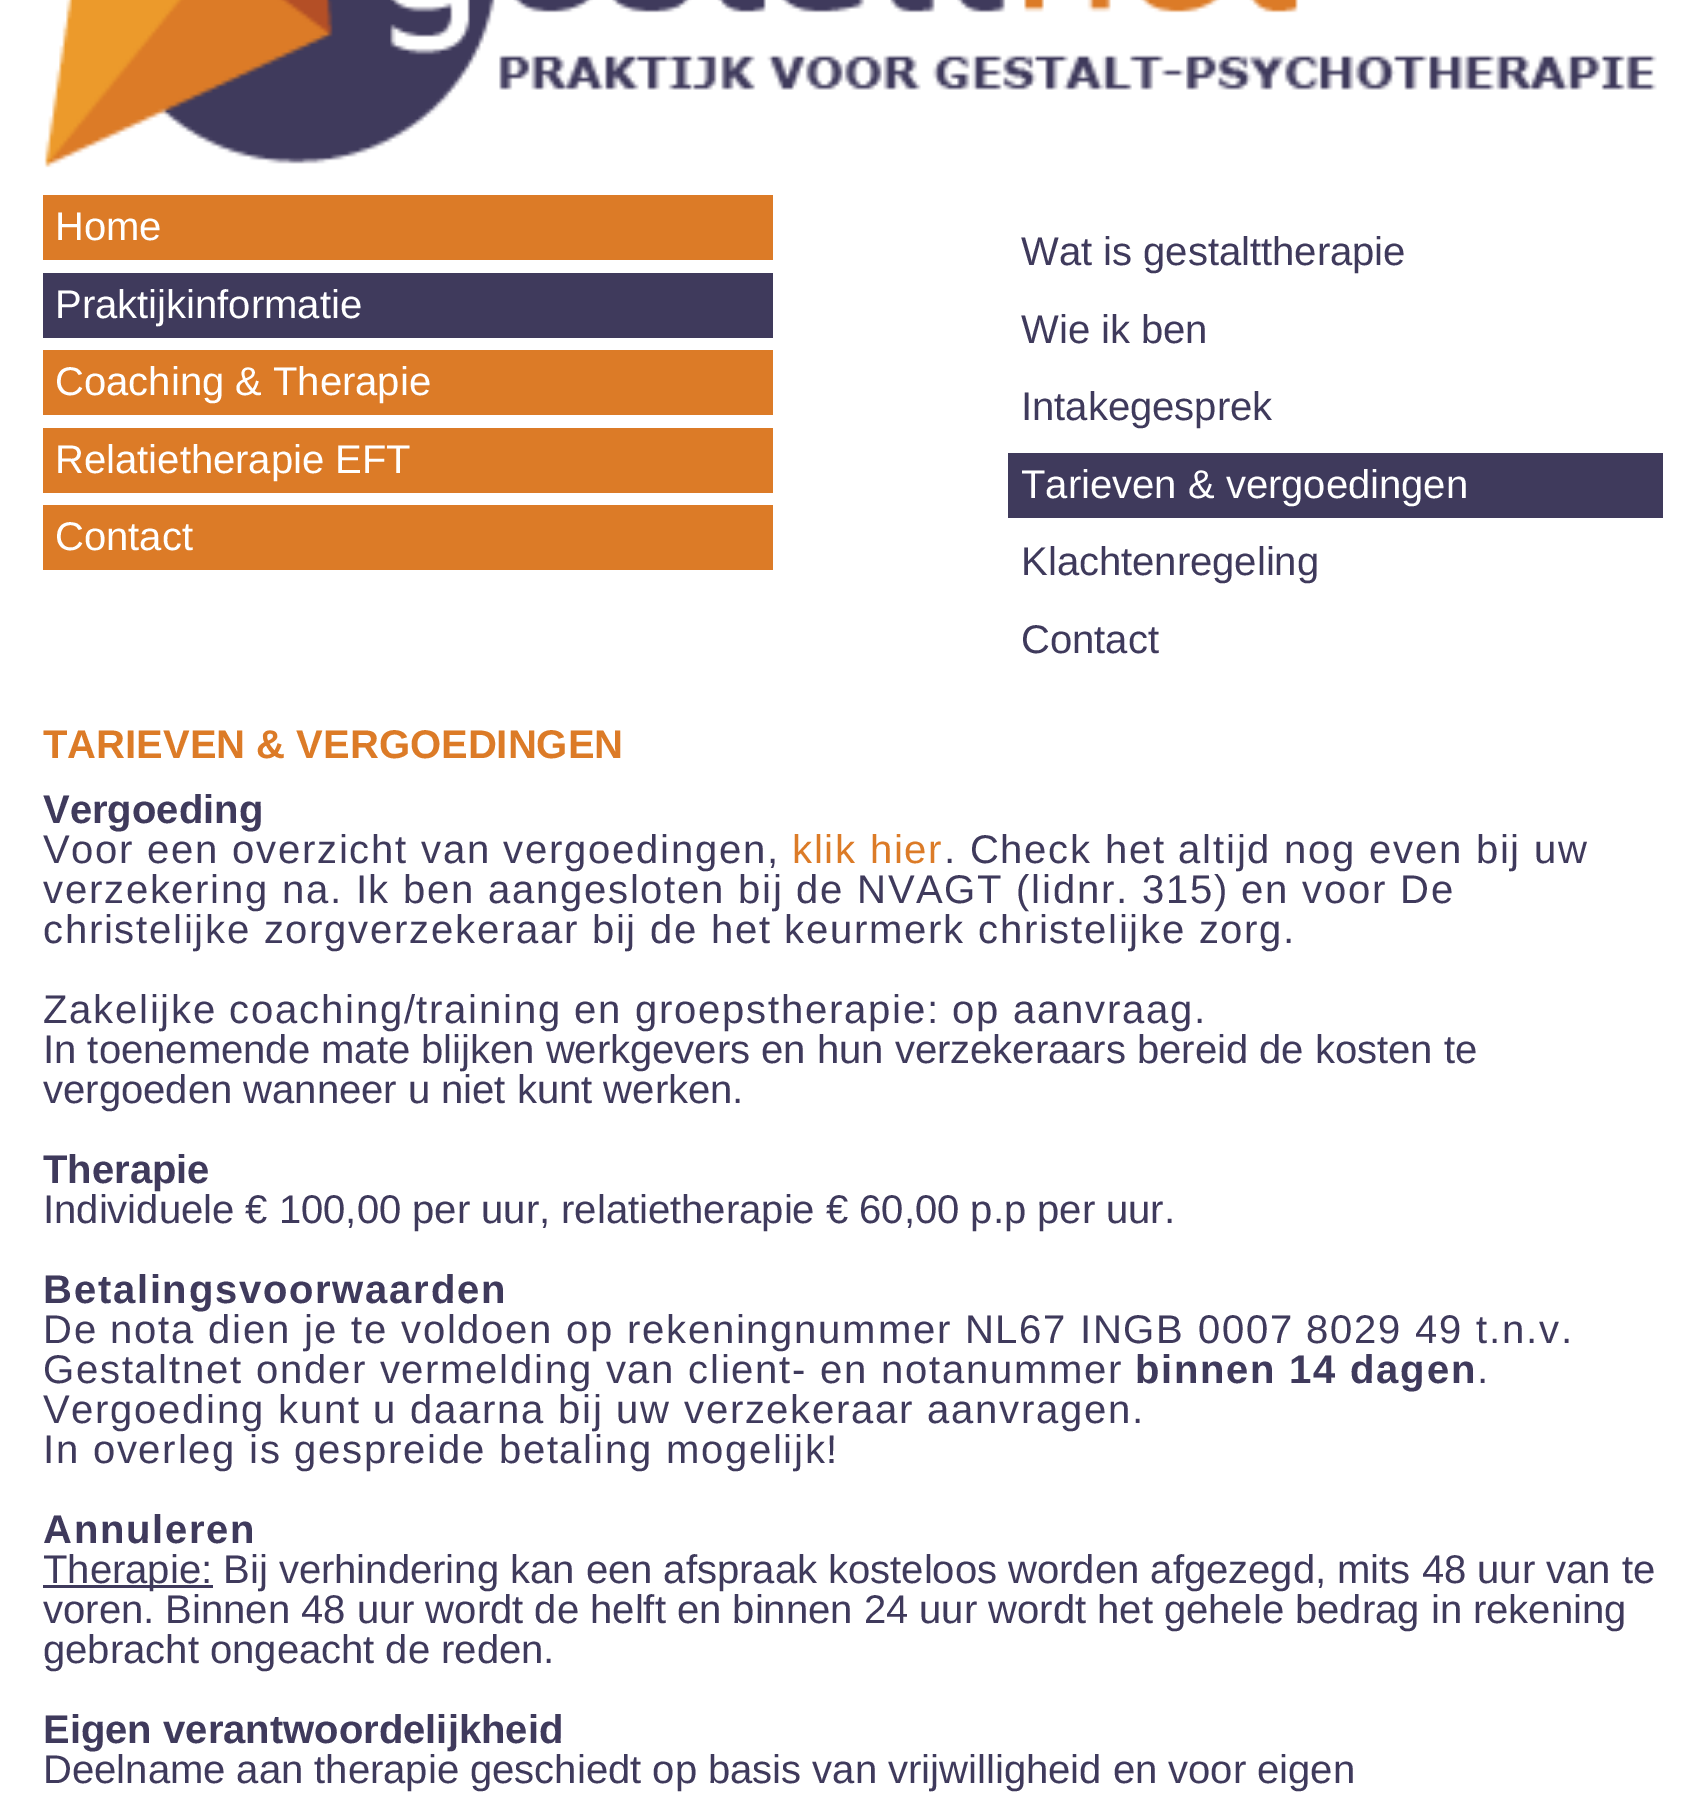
%!PS
<< /PageSize [1704 1796] >> setpagedevice
/rgb { dup -16 bitshift 255 div exch dup -8 bitshift 255 and 255 div exch 255 and 255 div setrgbcolor } def
/font { [ exch dup neg 0 0 3 -1 roll 0 0 ] selectfont } def
/text { moveto show } def
/picture { 5 dict begin { /h /w /y /x /name } { exch def } forall
  gsave x y translate w h scale
  w h 8 [w 0 0 h 0 0] name (r) file false 3 colorimage grestore end } def
0 1796 translate 1 -1 scale
4 setmiterlimit
/s1 { /LiberationSans-Regular 40 font 16#FFFFFF rgb } def
/s2 { /LiberationSans-Regular 40 font 16#3F3A5C rgb } def
/s3 { /LiberationSans-Bold 40 font 16#DC7B27 rgb } def
/s4 { /LiberationSans-Bold 40 font 16#3F3A5C rgb } def
16#FFFFFF rgb
0 0 1704 1796 rectfill
(pic1.raw) 44 0 1613 168 picture
16#DC7B27 rgb
43 195 730 65 rectfill
s1
(Home) 55 240 text
16#3F3A5C rgb
43 273 730 65 rectfill
s1
(Praktijkinformatie) 55 318 text
16#DC7B27 rgb
43 350 730 65 rectfill
s1
(Coaching & Therapie) 55 395 text
16#DC7B27 rgb
43 428 730 65 rectfill
s1
(Relatietherapie EFT) 55 473 text
16#DC7B27 rgb
43 505 730 65 rectfill
s1
(Contact) 55 550 text
s2
(Wat is gestalttherapie) 1021 265 text
(Wie ik ben) 1021 343 text
(Intakegesprek) 1021 420 text
1008 453 655 65 rectfill
s1
(Tarieven & vergoedingen) 1021 498 text
s2
(Klachtenregeling) 1021 575 text
(Contact) 1021 653 text
s3
(TARIEVEN & VERGOEDINGEN) 43 758 text
s4
(Vergoeding) 43 823 text
/LiberationSans-Regular 40 font
43 863 moveto 1.75 0 (Voor een overzicht van vergoedingen,) ashow
16#DC7B27 rgb
792 863 moveto 1.75 0 (klik hier) ashow
16#3F3A5C rgb
944 863 moveto 1.75 0 (. Check het altijd nog even bij uw) ashow
43 903 moveto 1.75 0 (verzekering na. Ik ben aangesloten bij de NVAGT \(lidnr. 315\) en voor De) ashow
43 943 moveto 1.75 0 (christelijke zorgverzekeraar bij de het keurmerk christelijke zorg.) ashow
43 1023 moveto 1.75 0 (Zakelijke coaching/training en groepstherapie: op aanvraag.) ashow
(In toenemende mate blijken werkgevers en hun verzekeraars bereid de kosten te) 43 1063 text
(vergoeden wanneer u niet kunt werken.) 43 1103 text
s4
(Therapie) 43 1183 text
s2
(Individuele € 100,00 per uur, relatietherapie € 60,00 p.p per uur.) 43 1223 text
/LiberationSans-Bold 40 font
43 1303 moveto 1.75 0 (Betalingsvoorwaarden) ashow
/LiberationSans-Regular 40 font
43 1343 moveto 1.75 0 (De nota dien je te voldoen op rekeningnummer NL67 INGB 0007 8029 49 t.n.v.) ashow
43 1383 moveto 1.75 0 (Gestaltnet onder vermelding van client- en notanummer) ashow
/LiberationSans-Bold 40 font
1135 1383 moveto 1.75 0 (binnen 14 dagen) ashow
/LiberationSans-Regular 40 font
1477 1383 moveto 1.75 0 (.) ashow
43 1423 moveto 1.75 0 (Vergoeding kunt u daarna bij uw verzekeraar aanvragen.) ashow
43 1463 moveto 1.75 0 (In overleg is gespreide betaling mogelijk!) ashow
/LiberationSans-Bold 40 font
43 1543 moveto 1.75 0 (Annuleren) ashow
43 1585 170 3 rectfill
s2
(Therapie: Bij verhindering kan een afspraak kosteloos worden afgezegd, mits 48 uur van te) 43 1583 text
(voren. Binnen 48 uur wordt de helft en binnen 24 uur wordt het gehele bedrag in rekening) 43 1623 text
(gebracht ongeacht de reden.) 43 1663 text
s4
(Eigen verantwoordelijkheid) 43 1743 text
s2
(Deelname aan therapie geschiedt op basis van vrijwilligheid en voor eigen) 43 1783 text
showpage
